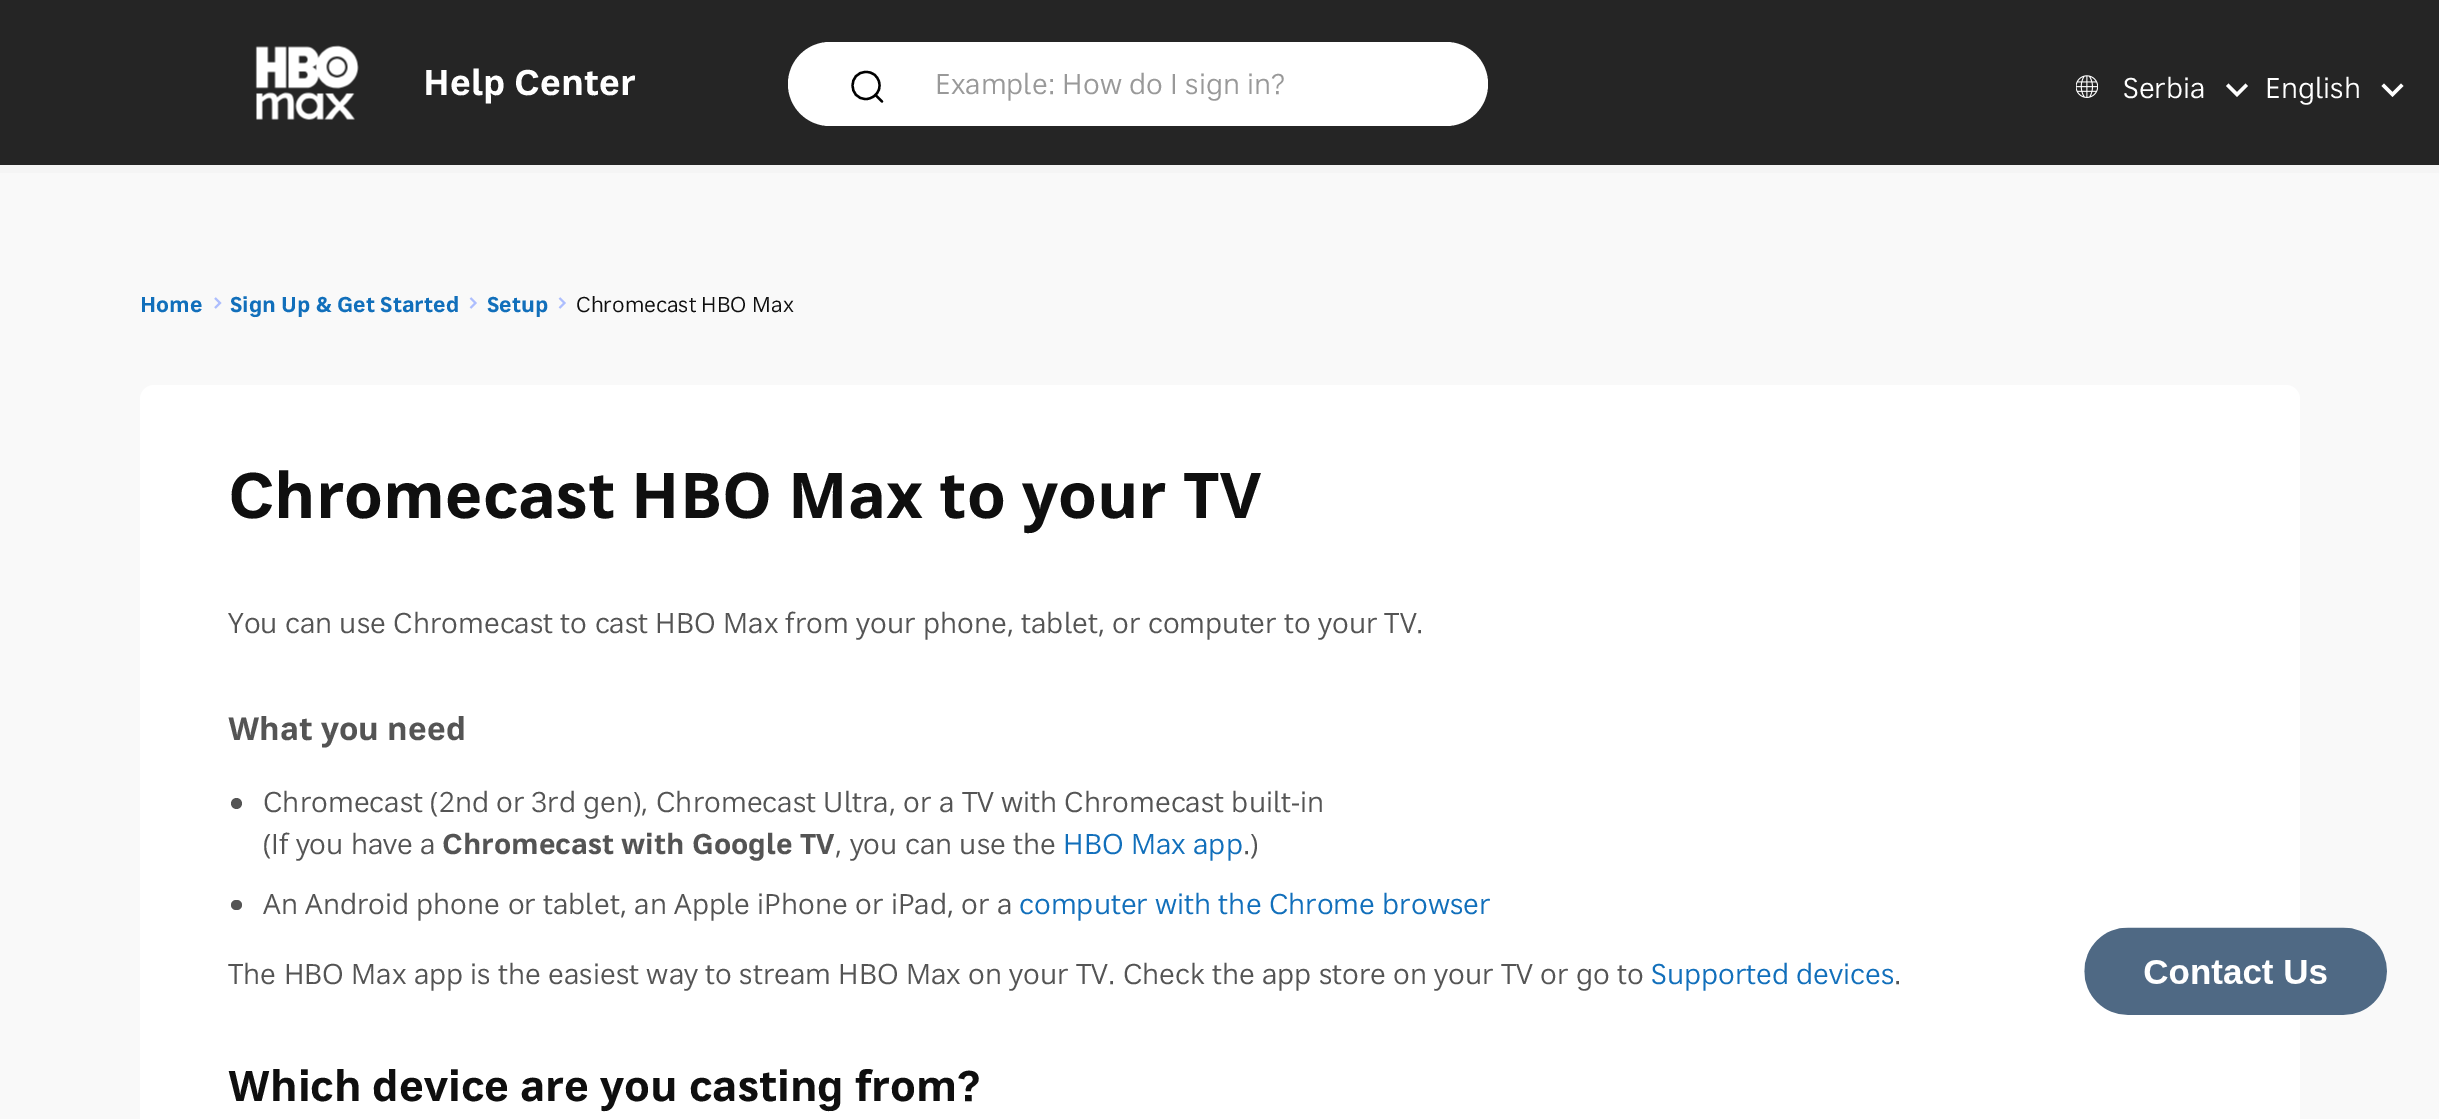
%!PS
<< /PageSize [2439 1119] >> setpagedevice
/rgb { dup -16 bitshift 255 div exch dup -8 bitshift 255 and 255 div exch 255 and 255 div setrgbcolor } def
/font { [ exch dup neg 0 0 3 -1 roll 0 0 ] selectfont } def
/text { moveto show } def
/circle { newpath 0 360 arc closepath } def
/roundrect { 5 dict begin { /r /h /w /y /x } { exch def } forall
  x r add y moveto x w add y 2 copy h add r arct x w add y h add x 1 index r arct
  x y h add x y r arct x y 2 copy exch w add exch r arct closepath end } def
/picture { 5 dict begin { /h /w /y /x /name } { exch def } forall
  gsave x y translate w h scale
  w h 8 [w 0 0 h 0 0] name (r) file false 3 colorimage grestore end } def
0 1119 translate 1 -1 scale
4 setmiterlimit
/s1 { /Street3-Bold 35 font 16#FFFFFF rgb } def
/s2 { /Street3-Regular 28 font 16#999999 rgb } def
/s3 { /Street3-Regular 28 font 16#FFFFFF rgb } def
/s4 { /Street3-Bold 21 font 16#116FBB rgb } def
/s5 { /Street3-Regular 21 font 16#0F0F0F rgb } def
/s6 { /Street3-Bold 63 font 16#0F0F0F rgb } def
/s7 { /Street3-Regular 28 font 16#545454 rgb } def
/s8 { /Street3-Bold 31.5 font 16#545454 rgb } def
/s9 { /Street3-Bold 28 font 16#545454 rgb } def
/s10 { /Street3-Regular 28 font 16#116FBB rgb } def
/s11 { /Street3-Bold 42 font 16#0F0F0F rgb } def
16#F5F5F5 rgb
0 0 2439 1119 rectfill
16#252525 rgb
0 0 2439 165 rectfill
(pic1.raw) 255 45 104 75 picture
s1
(Help Center) 423 95 text
788 42 700 84 42 roundrect fill
16#000000 rgb
2.3 setlinewidth
1 setlinecap
882 101.5 moveto 876 95.5 lineto 866 72 moveto 848 72 848 99 866 99 curveto 868.5 99 871.5 98 873.5 96.5 curveto 885 89 879 71.5 866 72 curveto stroke
s2
(Example: How do I sign in?) 935 94 text
(pic2.raw) 2076 75 22 23 picture
16#FFFFFF rgb
3.2 setlinewidth
2 setlinecap
2228.5 86 moveto 2237 94.5 lineto 2245.5 86 lineto stroke
(Serbia) 2123 98 text
2384 86 moveto 2392.5 94.5 lineto 2401 86 lineto stroke
(English) 2265 98 text
16#F9F9F9 rgb
0 173 2439 946 rectfill
s4
(Home) 140 312 text
16#ADBEFE rgb
1.8 setlinewidth
0 setlinecap
215 308 moveto 220 303 lineto 215 298 lineto stroke
s4
(Sign Up & Get Started) 230 312 text
16#ADBEFE rgb
470.5 308 moveto 475.5 303 lineto 470.5 298 lineto stroke
s4
(Setup) 487 312 text
16#ADBEFE rgb
559.5 308 moveto 564.5 303 lineto 559.5 298 lineto stroke
s5
(Chromecast HBO Max) 576 312 text
16#FFFFFF rgb
140 385 2160 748 14 roundrect fill
s6
(Chromecast HBO Max to your TV) 228 518 text
s7
(You can use Chromecast to cast HBO Max from your phone, tablet, or computer to your TV.) 228 633 text
s8
(What you need) 228 740 text
236.5 803.5 5.5 circle fill
s7
(Chromecast \(2nd or 3rd gen\), Chromecast Ultra, or a TV with Chromecast built-in) 263 812 text
(\(If you have a) 263 854 text
s9
(Chromecast with Google TV) 442 854 text
s7
(, you can use the) 835 854 text
s10
(HBO Max app) 1063 854 text
s7
(.\)) 1243 854 text
231 900 11 10 5 roundrect fill
(An Android phone or tablet, an Apple iPhone or iPad, or a) 263 914 text
s10
(computer with the Chrome browser) 1019 914 text
s7
(The HBO Max app is the easiest way to stream HBO Max on your TV. Check the app store on your TV or go to) 228 984 text
s10
(Supported devices) 1651 984 text
s7
(.) 1894 984 text
s11
(Which device are you casting from?) 228 1101 text
(pic3.raw) 2084 927 303 88 picture
showpage
